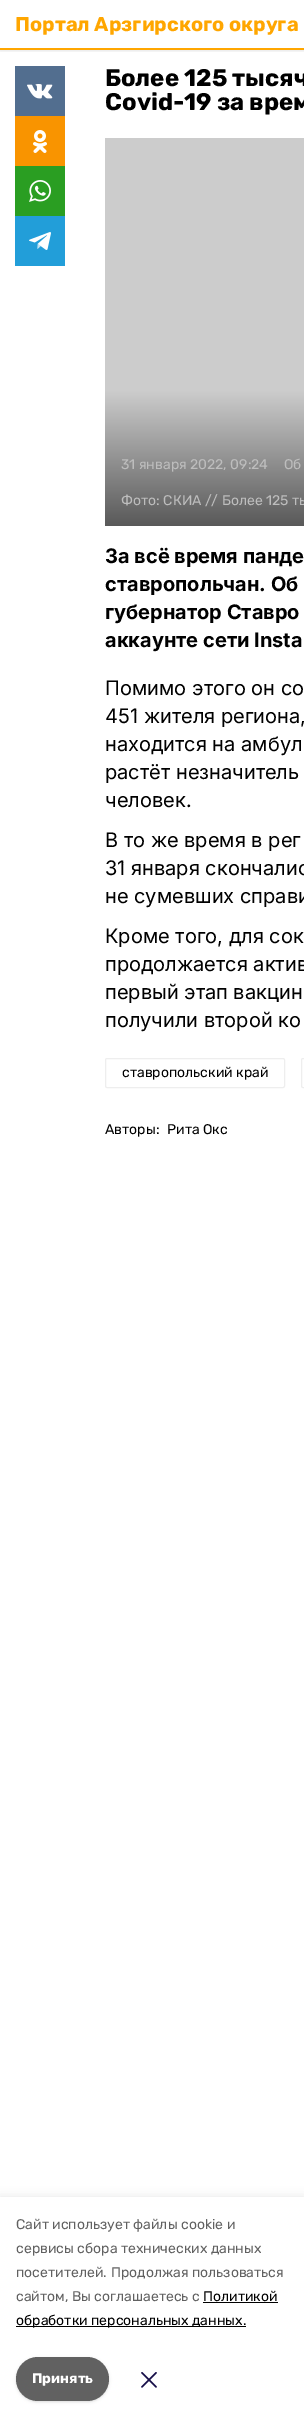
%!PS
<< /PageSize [304 2417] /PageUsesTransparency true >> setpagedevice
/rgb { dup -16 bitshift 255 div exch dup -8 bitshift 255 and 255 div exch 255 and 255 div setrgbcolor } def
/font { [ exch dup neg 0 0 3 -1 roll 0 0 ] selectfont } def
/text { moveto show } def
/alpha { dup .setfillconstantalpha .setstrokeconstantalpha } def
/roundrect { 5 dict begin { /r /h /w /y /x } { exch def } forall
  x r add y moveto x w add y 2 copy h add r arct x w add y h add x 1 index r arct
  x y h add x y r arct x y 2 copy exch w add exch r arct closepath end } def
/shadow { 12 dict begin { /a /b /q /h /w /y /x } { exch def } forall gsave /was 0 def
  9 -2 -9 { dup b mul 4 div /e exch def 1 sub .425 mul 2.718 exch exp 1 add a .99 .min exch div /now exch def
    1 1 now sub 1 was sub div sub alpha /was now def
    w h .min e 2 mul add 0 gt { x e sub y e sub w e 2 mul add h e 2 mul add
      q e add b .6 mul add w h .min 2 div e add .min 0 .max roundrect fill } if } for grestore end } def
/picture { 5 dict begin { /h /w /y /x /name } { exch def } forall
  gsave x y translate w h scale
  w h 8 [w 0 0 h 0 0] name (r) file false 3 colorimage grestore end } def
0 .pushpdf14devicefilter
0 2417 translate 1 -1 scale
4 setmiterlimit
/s1 { /Rubik-Bold 20 font 16#FFA600 rgb } def
/s2 { /Rubik-Bold 24 font 16#000000 rgb } def
/s3 { /Rubik-Regular 14 font 16#BDBDBD rgb } def
/s4 { /Inter-Bold 20 font 16#000000 rgb } def
/s5 { /Inter-Regular 20 font 16#000000 rgb } def
/s6 { /Rubik-Regular 14 font 16#000000 rgb } def
/s7 { /Rubik-Regular 14 font 16#616161 rgb } def
/s8 { /Rubik-Bold 14 font 16#FFFFFF rgb } def
16#FFFFFF rgb
0 0 304 2417 rectfill
gsave
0 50 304 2 rectclip
16#000000 rgb
0 1 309 50 0 1.5 0.1 shadow
grestore
16#FFA600 rgb
0 48 304 2 rectfill
s1
(Портал Арзгирского округа) 15 31 text
16#526E8F rgb
15 66 50 50 rectfill
(pic1.raw) 27 84 26 15 picture
16#F99400 rgb
15 116 50 50 rectfill
(pic2.raw) 33 130 14 23 picture
16#2A9E22 rgb
15 166 50 50 rectfill
(pic3.raw) 29 180 22 22 picture
16#229ED9 rgb
15 216 50 50 rectfill
(pic4.raw) 29 232 22 18 picture
s2
(Более 125 тысяч) 105 86 text
(Covid-19 за врем) 105 110 text
16#CCCCCC rgb
105 138 199 253 rectfill
gsave 105 391 moveto 304 391 lineto 304 526 lineto 105 526 lineto closepath clip newpath
<< /ShadingType 2 /ColorSpace /DeviceRGB /Coords [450 391 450 526] /Extend [true true] /Function << /FunctionType 2 /Domain [0 1] /C0 [0.8 0.8 0.8] /C1 [0.349 0.349 0.349] /N 1 >> >> shfill grestore
s3
(31 января 2022, 09:24) 121 469 text
(Об) 284 469 text
(Фото: СКИА // Более 125 ты) 121 505 text
s4
(За всё время панде) 105 563 text
(ставропольчан. Об) 105 591 text
(губернатор Ставро) 105 619 text
(аккаунте сети Insta) 105 647 text
s5
(Помимо этого он со) 105 695 text
(451 жителя региона,) 105 723 text
(находится на амбул) 105 751 text
(растёт незначитель) 105 779 text
(человек.) 105 807 text
(В то же время в рег) 105 847 text
(31 января скончалис) 105 875 text
(не сумевших справи) 105 903 text
(Кроме того, для сок) 105 943 text
(продолжается актив) 105 971 text
(первый этап вакцин) 105 999 text
(получили второй ко) 105 1027 text
16#EEEEEE rgb
105.5 1058.5 179 29 1.5 roundrect stroke
s6
(ставропольский край) 122 1077 text
16#EEEEEE rgb
301.5 1058.5 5 29 1.5 roundrect stroke
s6
(Авторы:) 105 1134 text
(Рита Окс) 167 1134 text
0 2197 304 220 0 5 0.1 shadow
16#FFFFFF rgb
0 2197 304 220 rectfill
s7
(Cайт использует файлы cookie и) 16 2229 text
(сервисы сбора технических данных) 16 2253 text
(посетителей.) 16 2277 text
(Продолжая пользоваться) 111 2277 text
(сайтом, Вы соглашаетесь с) 16 2301 text
s6
(Политикой) 203 2301 text
203 2302 75 1 rectfill
16 2326 230 1 rectfill
(обработки персональных данных.) 16 2325 text
17 2359 91 42 21 1 0.1 shadow
16 2358 93 44 22 1.5 0.1 shadow
16#616161 rgb
16 2357 93 44 22 roundrect fill
s8
(Принять) 32 2383 text
(pic5.raw) 141 2372 16 16 picture
.poppdf14devicefilter showpage
